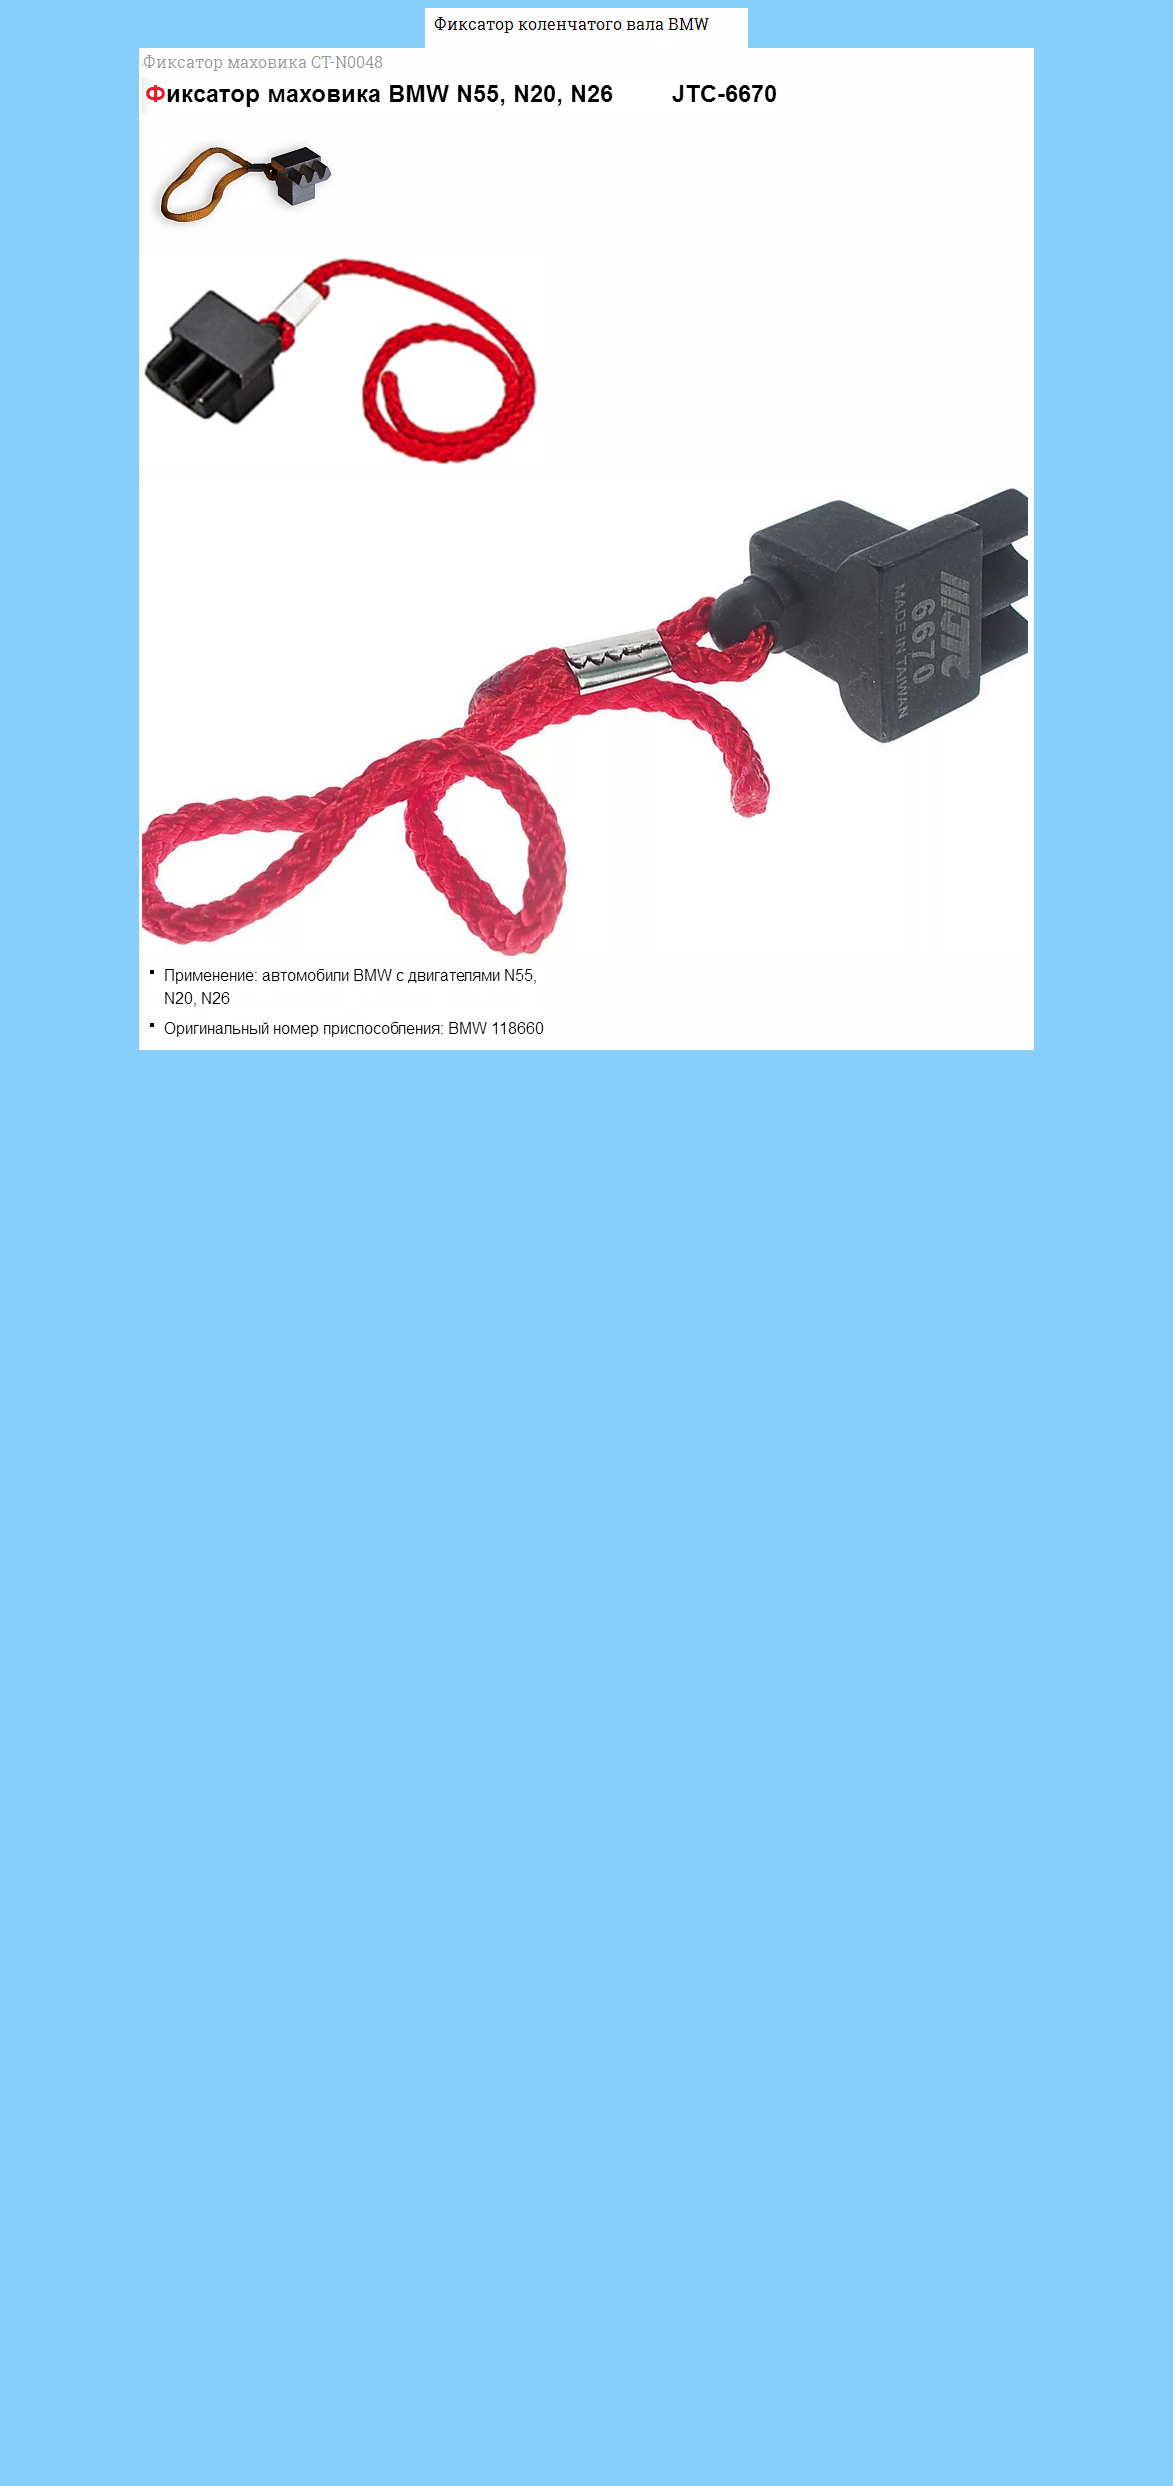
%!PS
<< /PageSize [1173 2486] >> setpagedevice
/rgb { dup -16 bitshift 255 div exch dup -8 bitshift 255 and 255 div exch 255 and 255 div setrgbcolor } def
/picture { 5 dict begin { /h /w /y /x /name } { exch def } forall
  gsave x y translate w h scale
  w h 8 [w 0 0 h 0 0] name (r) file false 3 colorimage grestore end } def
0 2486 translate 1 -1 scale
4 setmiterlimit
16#87CEFA rgb
0 0 1173 2486 rectfill
(pic1.raw) 425 8 323 40 picture
16#FFFEFF rgb
139 48 895 1002 rectfill
(pic2.raw) 142 55 241 18 picture
(pic3.raw) 142 77 635 37 picture
(pic4.raw) 149 137 186 95 picture
(pic5.raw) 142 256 400 209 picture
(pic6.raw) 142 483 886 473 picture
(pic7.raw) 150 969 394 68 picture
showpage
